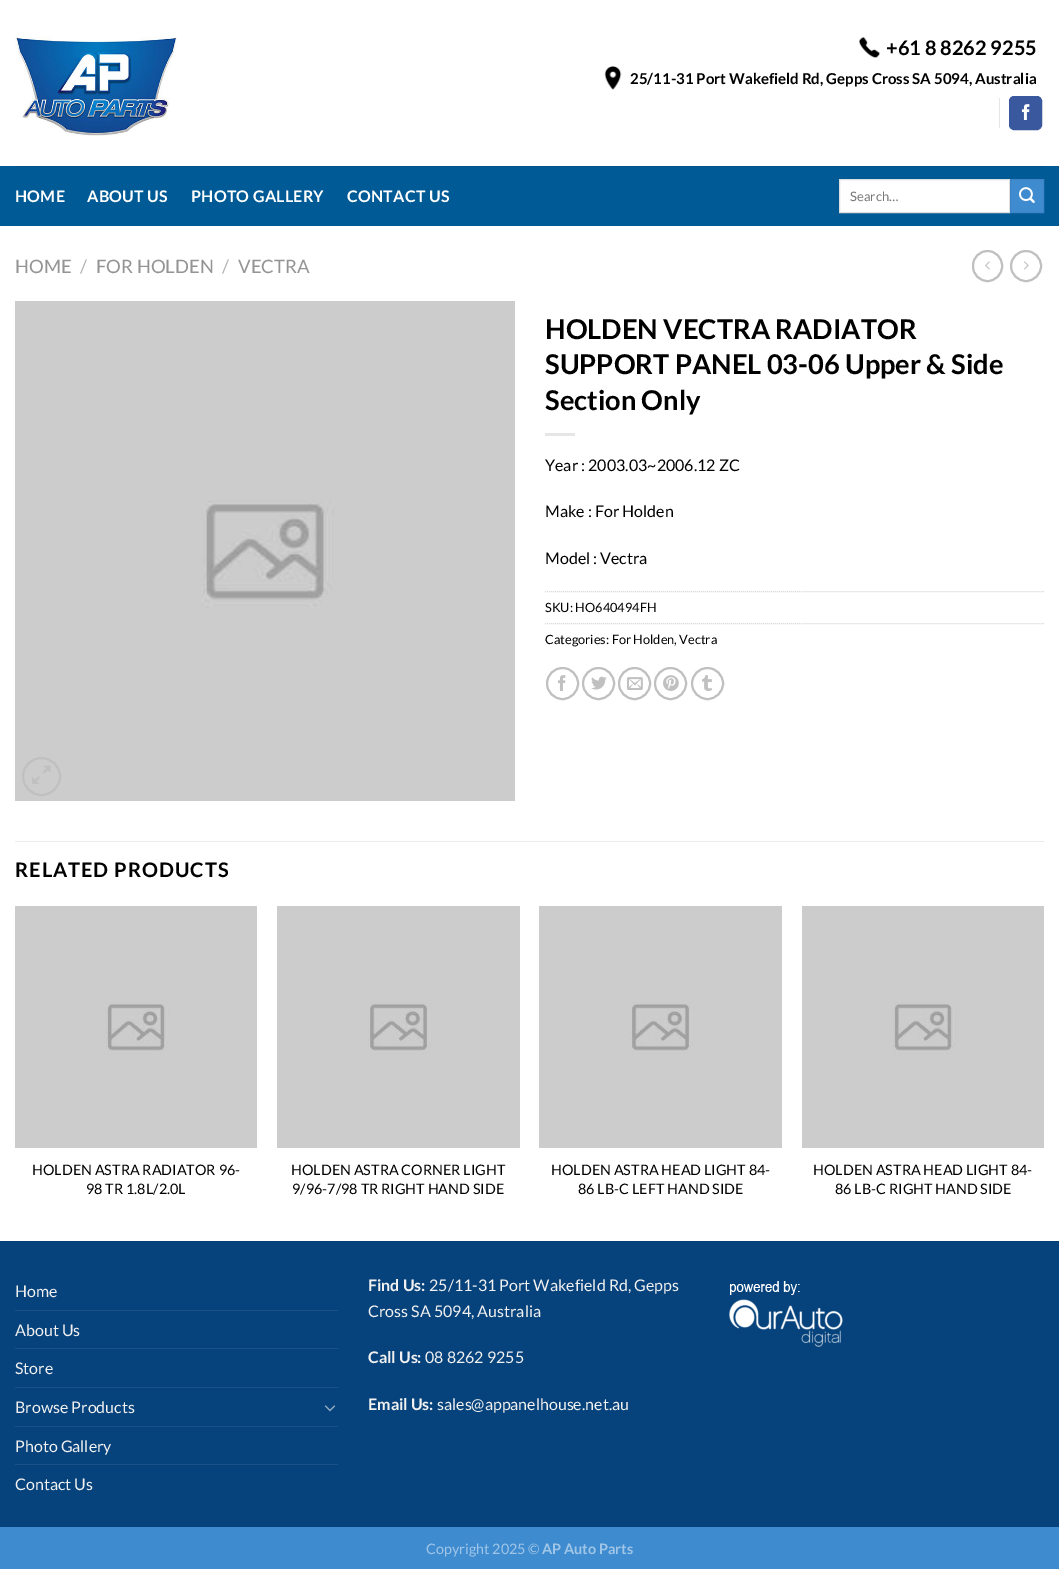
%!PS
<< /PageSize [1059 1569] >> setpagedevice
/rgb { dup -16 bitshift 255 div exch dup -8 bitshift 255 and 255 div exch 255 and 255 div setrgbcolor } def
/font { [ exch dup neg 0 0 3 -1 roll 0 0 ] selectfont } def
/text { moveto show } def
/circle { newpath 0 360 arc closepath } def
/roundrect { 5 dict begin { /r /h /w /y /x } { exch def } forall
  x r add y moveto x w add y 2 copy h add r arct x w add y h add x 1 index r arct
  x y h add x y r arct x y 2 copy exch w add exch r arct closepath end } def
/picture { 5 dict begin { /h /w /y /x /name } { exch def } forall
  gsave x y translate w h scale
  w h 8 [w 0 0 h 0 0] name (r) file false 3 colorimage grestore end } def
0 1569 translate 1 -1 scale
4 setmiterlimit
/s1 { /Lato-Bold 20 font 16#000000 rgb } def
/s2 { /Lato-Bold 15 font 16#000000 rgb } def
/s3 { /Lato-Regular 13 font 16#757575 rgb } def
/s4 { /Lato-Regular 18.5 font 16#949494 rgb } def
/s5 { /Lato-Regular 18.5 font 16#B2B2B2 rgb } def
/s6 { /Lato-Bold 27.25 font 16#000000 rgb } def
/s7 { /Lato-Regular 16 font 16#000000 rgb } def
/s8 { /Lato-Regular 12.75 font 16#000000 rgb } def
/s9 { /Lato-Regular 14.4 font 16#000000 rgb } def
/s10 { /Lato-Regular 16 font 16#F1F1F1 rgb } def
/s11 { /Lato-Bold 16 font 16#F1F1F1 rgb } def
/s12 { /Lato-Regular 14.4 font 16#9FC5E7 rgb } def
/s13 { /Lato-Bold 14.4 font 16#9FC5E7 rgb } def
16#FFFFFF rgb
0 0 1059 1569 rectfill
(pic1.raw) 15 37 162 99 picture
(pic2.raw) 859 37 21 21 picture
s1
(+61 8 8262 9255) 886 55 text
(pic3.raw) 604 66 18 24 picture
s2
(25/11-31 Port Wakefield Rd, Gepps Cross SA 5094, Australia) 630 84 text
16#E6E6E6 rgb
999 98 1 30 rectfill
16#3A589D rgb
1009.5 96.5 32 33 4.5 roundrect gsave fill grestore
stroke
(pic4.raw) 1021 104 9 16 picture
16#005A96 rgb
0 166 1059 60 rectfill
16#005187 rgb
15 166 1029 1 rectfill
/Lato-Bold 16 font
16#FFFFFF rgb
15 202 moveto 0.25 0 (HOME) ashow
87 202 moveto 0.25 0 (ABOUT US) ashow
191 202 moveto 0.25 0 (PHOTO GALLERY) ashow
347 202 moveto 0.25 0 (CONTACT US) ashow
839.5 179.5 moveto 1009.5 179.5 lineto 1009.5 212.5 lineto 839.5 212.5 lineto closepath gsave fill grestore
16#DDDDDD rgb
stroke
s3
(Search…) 850 201 text
16#3F8BCF rgb
1010.5 179.5 moveto 1043.5 179.5 lineto 1043.5 212.5 lineto 1010.5 212.5 lineto closepath gsave fill grestore
16#3C84C5 rgb
stroke
(pic5.raw) 1019 187 16 16 picture
s4
(HOME) 15 273 text
s5
(/) 80 273 text
s4
(FOR HOLDEN) 96 273 text
s5
(/) 222 273 text
s4
(VECTRA) 238 273 text
16#C0C0C0 rgb
2 setlinewidth
973 251 29 30 14.5 roundrect stroke
(pic6.raw) 985 261 5 9 picture
1026 266 15 circle stroke
(pic7.raw) 1024 261 5 9 picture
(pic8.raw) 15 301 500 500 picture
41.5 776.5 18.5 circle stroke
(pic9.raw) 32 765 19 19 picture
s6
(HOLDEN VECTRA RADIATOR) 545 339 text
(SUPPORT PANEL 03-06 Upper & Side) 545 374 text
(Section Only) 545 410 text
16#E6E6E6 rgb
545 433 30 3 rectfill
s7
(Year : 2003.03~2006.12 ZC) 545 471 text
(Make : For Holden) 545 517 text
(Model : Vectra) 545 564 text
16#DDDDDD rgb
1 setlinewidth
[1 1] 0 setdash
545 591.5 moveto 1044 591.5 lineto stroke
s8
(SKU: HO640494FH) 545 612 text
16#DDDDDD rgb
545 623.5 moveto 1044 623.5 lineto stroke
s8
(Categories: For Holden, Vectra) 545 644 text
16#C0C0C0 rgb
2 setlinewidth
[] 0 setdash
562.5 683.5 15.5 circle stroke
(pic10.raw) 558 675 8 16 picture
598.5 683.5 15.5 circle stroke
(pic11.raw) 591 676 16 14 picture
634.5 683.5 15.5 circle stroke
(pic12.raw) 627 677 16 13 picture
670.5 683.5 15.5 circle stroke
(pic13.raw) 663 675 16 16 picture
707.5 683.5 15.5 circle stroke
(pic14.raw) 702 675 10 16 picture
16#ECECEC rgb
15 841 1029 1 rectfill
/Lato-Bold 20 font
16#000000 rgb
15 877 moveto 1 0 (RELATED PRODUCTS) ashow
(pic15.raw) 15 906 242 242 picture
s9
(HOLDEN ASTRA RADIATOR 96-) 32 1175 text
(98 TR 1.8L/2.0L) 86 1194 text
(pic16.raw) 277 906 243 242 picture
(HOLDEN ASTRA CORNER LIGHT) 291 1175 text
(9/96-7/98 TR RIGHT HAND SIDE) 292 1194 text
(pic17.raw) 539 906 243 242 picture
(HOLDEN ASTRA HEAD LIGHT 84-) 551 1175 text
(86 LB-C LEFT HAND SIDE) 578 1194 text
(pic15.raw) 802 906 242 242 picture
(HOLDEN ASTRA HEAD LIGHT 84-) 813 1175 text
(86 LB-C RIGHT HAND SIDE) 835 1194 text
16#06427B rgb
0 1242 1059 285 rectfill
16#063F75 rgb
0 1241 1059 1 rectfill
s10
(Home) 15 1297 text
16#1A5186 rgb
15 1310 323 1 rectfill
s10
(About Us) 15 1336 text
16#1A5186 rgb
15 1348 323 1 rectfill
s10
(Store) 15 1374 text
16#1A5186 rgb
15 1387 323 1 rectfill
s10
(Browse Products) 15 1413 text
(pic18.raw) 324 1405 12 7 picture
16#1A5186 rgb
15 1426 323 1 rectfill
s10
(Photo Gallery) 15 1452 text
16#1A5186 rgb
15 1464 323 1 rectfill
s10
(Contact Us) 15 1490 text
s11
(Find Us:) 368 1291 text
s10
(25/11-31 Port Wakefield Rd, Gepps) 429 1291 text
(Cross SA 5094, Australia) 368 1317 text
s11
(Call Us:) 368 1363 text
s10
(08 8262 9255) 425 1363 text
s11
(Email Us:) 368 1410 text
s10
(sales@appanelhouse.net.au) 437 1410 text
(pic19.raw) 729 1281 114 66 picture
16#3F8BCF rgb
0 1527 1059 42 rectfill
s12
(Copyright 2025 ©) 426 1554 text
s13
(AP Auto Parts) 542 1554 text
showpage
